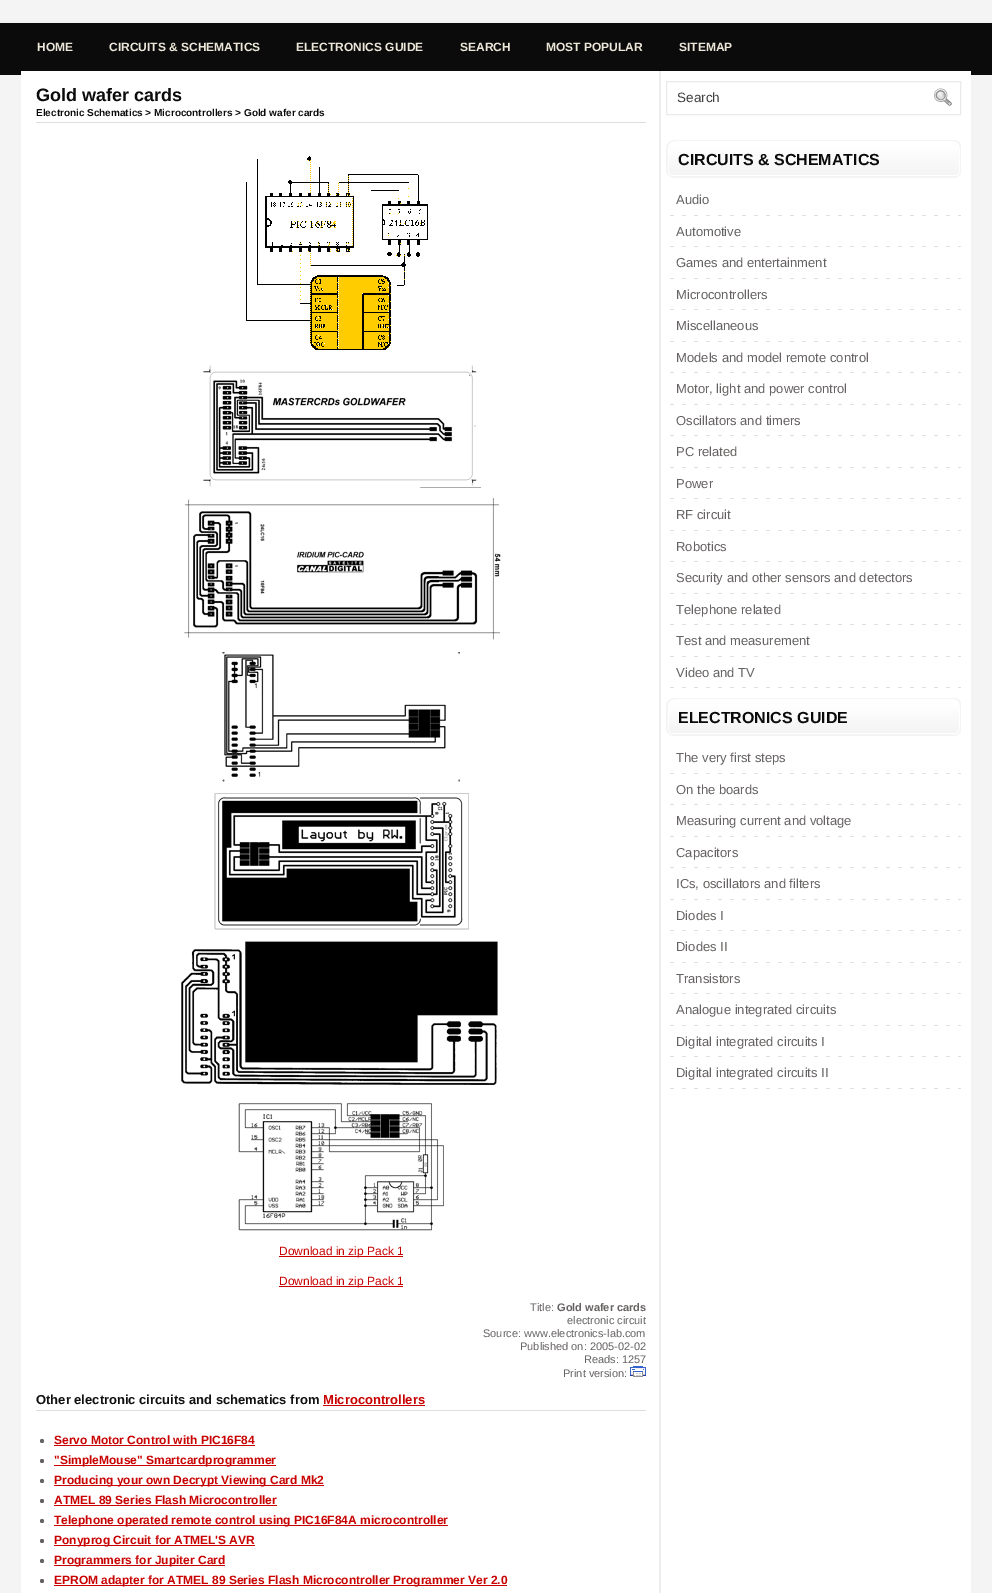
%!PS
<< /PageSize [992 1593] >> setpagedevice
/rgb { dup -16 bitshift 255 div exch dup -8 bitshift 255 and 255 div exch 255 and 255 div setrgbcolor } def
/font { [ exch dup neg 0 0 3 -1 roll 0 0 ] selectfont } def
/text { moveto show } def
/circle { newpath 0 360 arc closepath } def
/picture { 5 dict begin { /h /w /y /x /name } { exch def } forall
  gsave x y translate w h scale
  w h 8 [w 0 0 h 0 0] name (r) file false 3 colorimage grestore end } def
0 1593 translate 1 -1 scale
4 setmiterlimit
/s1 { /LiberationSans-Bold 12 font 16#EDE7D9 rgb } def
/s2 { /LiberationSans-Bold 18 font 16#0B0B0B rgb } def
/s3 { /LiberationSans-Bold 10 font 16#0B0B0B rgb } def
/s4 { /LiberationSans-Regular 12 font 16#C90000 rgb } def
/s5 { /LiberationSans-Regular 11 font 16#666262 rgb } def
/s6 { /LiberationSans-Bold 11 font 16#666262 rgb } def
/s7 { /LiberationSans-Bold 13 font 16#111111 rgb } def
/s8 { /LiberationSans-Bold 13 font 16#C90000 rgb } def
/s9 { /LiberationSans-Bold 12 font 16#C90000 rgb } def
/s10 { /LiberationSans-Regular 13.5 font 16#3F3F3F rgb } def
/s11 { /LiberationSans-Bold 16 font 16#0B0B0B rgb } def
/s12 { /LiberationSans-Regular 13 font 16#666262 rgb } def
16#F4F4F4 rgb
0 0 992 1593 rectfill
16#0B0B0B rgb
0 23 992 52 rectfill
s1
(HOME) 37 51 text
(CIRCUITS & SCHEMATICS) 109 51 text
(ELECTRONICS GUIDE) 296 51 text
(SEARCH) 460 51 text
(MOST POPULAR) 546 51 text
(SITEMAP) 679 51 text
16#FFFFFF rgb
21 71 950 1522 rectfill
16#EEECEC rgb
659 71 2 1522 rectfill
s2
(Gold wafer cards) 36 101 text
s3
(Electronic Schematics > Microcontrollers > Gold wafer cards) 36 116 text
16#DDDDDD rgb
36 122 610 1 rectfill
(pic1.raw) 246 156 182 194 picture
(pic2.raw) 203 365 278 123 picture
(pic3.raw) 184 498 317 142 picture
(pic4.raw) 222 652 238 130 picture
(pic5.raw) 214 793 255 137 picture
(pic6.raw) 181 941 317 144 picture
(pic7.raw) 238 1103 206 128 picture
16#C90000 rgb
279 1256 124 1 rectfill
s4
(Download in zip Pack 1) 279 1255 text
279 1286 124 1 rectfill
(Download in zip Pack 1) 279 1285 text
s5
(Title:) 530 1311 text
s6
(Gold wafer cards) 557 1311 text
s5
(electronic circuit) 567 1324 text
(Source: www.electronics-lab.com) 483 1337 text
(Published on: 2005-02-02) 520 1350 text
(Reads: 1257) 584 1363 text
(Print version:) 563 1377 text
(pic8.raw) 630 1366 16 11 picture
s7
(Other electronic circuits and schematics from) 36 1404 text
s8
(Microcontrollers) 323 1404 text
323 1405 102 1 rectfill
16#DDDDDD rgb
36 1410 610 1 rectfill
16#666262 rgb
42 1441 2 circle fill
s9
(Servo Motor Control with PIC16F84) 54 1444 text
54 1445 201 1 rectfill
16#666262 rgb
42 1461 2 circle fill
16#C90000 rgb
54 1465 222 1 rectfill
("SimpleMouse" Smartcardprogrammer) 54 1464 text
16#666262 rgb
42 1481 2 circle fill
16#C90000 rgb
54 1485 270 1 rectfill
(Producing your own Decrypt Viewing Card Mk2) 54 1484 text
16#666262 rgb
42 1501 2 circle fill
s9
(ATMEL 89 Series Flash Microcontroller) 54 1504 text
54 1505 223 1 rectfill
16#666262 rgb
42 1521 2 circle fill
16#C90000 rgb
54 1525 394 1 rectfill
(Telephone operated remote control using PIC16F84A microcontroller) 54 1524 text
16#666262 rgb
42 1541 2 circle fill
16#C90000 rgb
54 1545 201 1 rectfill
(Ponyprog Circuit for ATMEL'S AVR) 54 1544 text
16#666262 rgb
42 1561 2 circle fill
16#C90000 rgb
54 1565 171 1 rectfill
(Programmers for Jupiter Card) 54 1564 text
16#666262 rgb
42 1581 2 circle fill
16#C90000 rgb
54 1585 453 1 rectfill
(EPROM adapter for ATMEL 89 Series Flash Microcontroller Programmer Ver 2.0) 54 1584 text
16#EBEAEA rgb
666.5 81.5 294 33 rectstroke
s10
(Search) 677 102 text
(pic9.raw) 934 88 18 18 picture
(pic10.raw) 666 140 295 38 picture
s11
(CIRCUITS & SCHEMATICS) 678 165 text
(pic11.raw) 670 215 291 1 picture
s12
(Audio) 676 204 text
(pic11.raw) 670 246 291 1 picture
(Automotive) 676 236 text
(pic11.raw) 670 278 291 1 picture
(Games and entertainment) 676 267 text
(pic11.raw) 670 309 291 1 picture
(Microcontrollers) 676 299 text
(pic11.raw) 670 341 291 1 picture
(Miscellaneous) 676 330 text
(pic11.raw) 670 372 291 1 picture
(Models and model remote control) 676 362 text
(pic11.raw) 670 404 291 1 picture
(Motor, light and power control) 676 393 text
(pic11.raw) 670 435 291 1 picture
(Oscillators and timers) 676 425 text
(pic11.raw) 670 467 291 1 picture
(PC related) 676 456 text
(pic11.raw) 670 498 291 1 picture
(Power) 676 488 text
(pic11.raw) 670 530 291 1 picture
(RF circuit) 676 519 text
(pic11.raw) 670 561 291 1 picture
(Robotics) 676 551 text
(pic11.raw) 670 593 291 1 picture
(Security and other sensors and detectors) 676 582 text
(pic11.raw) 670 624 291 1 picture
(Telephone related) 676 614 text
(pic11.raw) 670 656 291 1 picture
(Test and measurement) 676 645 text
(pic11.raw) 670 687 291 1 picture
(Video and TV) 676 677 text
(pic10.raw) 666 698 295 38 picture
s11
(ELECTRONICS GUIDE) 678 723 text
(pic11.raw) 670 773 291 1 picture
s12
(The very first steps) 676 762 text
(pic11.raw) 670 804 291 1 picture
(On the boards) 676 794 text
(pic11.raw) 670 836 291 1 picture
(Measuring current and voltage) 676 825 text
(pic11.raw) 670 867 291 1 picture
(Capacitors) 676 857 text
(pic11.raw) 670 899 291 1 picture
(ICs, oscillators and filters) 676 888 text
(pic11.raw) 670 930 291 1 picture
(Diodes I) 676 920 text
(pic11.raw) 670 962 291 1 picture
(Diodes II) 676 951 text
(pic11.raw) 670 993 291 1 picture
(Transistors) 676 983 text
(pic11.raw) 670 1025 291 1 picture
(Analogue integrated circuits) 676 1014 text
(pic11.raw) 670 1056 291 1 picture
(Digital integrated circuits I) 676 1046 text
(pic11.raw) 670 1088 291 1 picture
(Digital integrated circuits II) 676 1077 text
showpage
